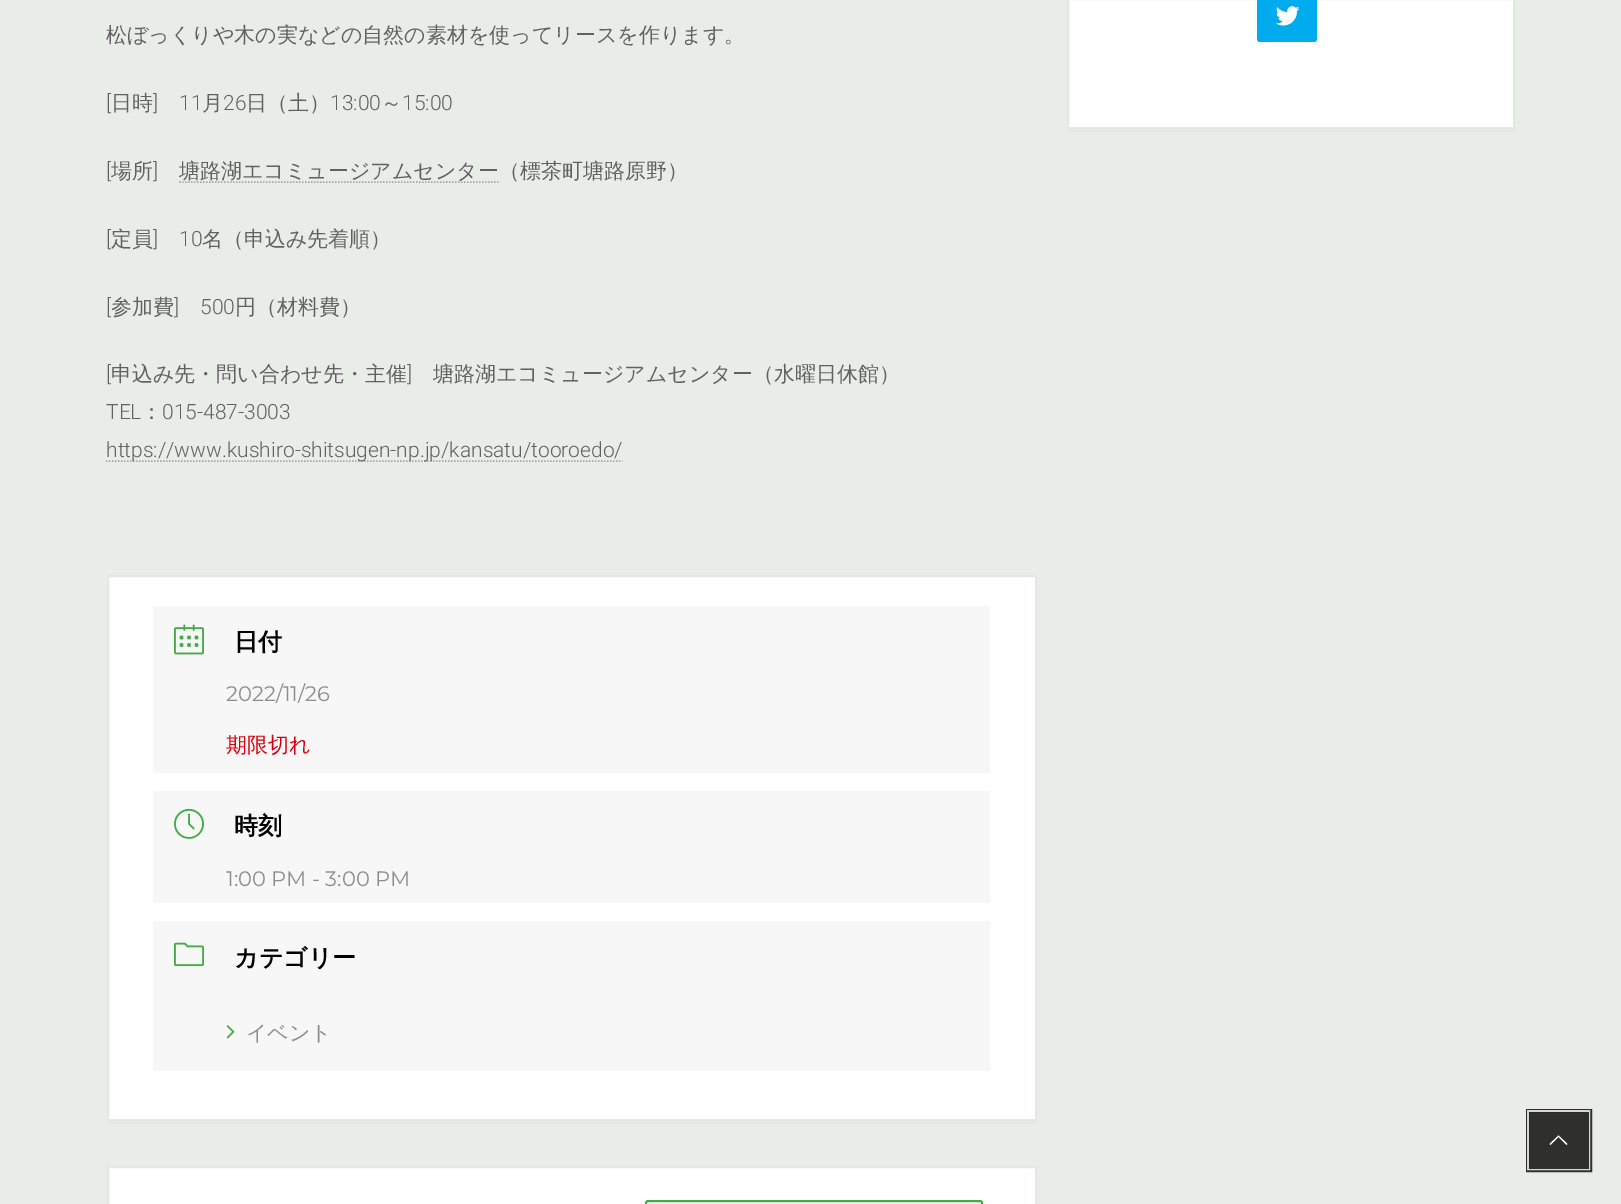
%!PS
<< /PageSize [1621 1204] /PageUsesTransparency true >> setpagedevice
/rgb { dup -16 bitshift 255 div exch dup -8 bitshift 255 and 255 div exch 255 and 255 div setrgbcolor } def
/font { [ exch dup neg 0 0 3 -1 roll 0 0 ] selectfont } def
/text { moveto show } def
/alpha { dup .setfillconstantalpha .setstrokeconstantalpha } def
/roundrect { 5 dict begin { /r /h /w /y /x } { exch def } forall
  x r add y moveto x w add y 2 copy h add r arct x w add y h add x 1 index r arct
  x y h add x y r arct x y 2 copy exch w add exch r arct closepath end } def
/picture { 5 dict begin { /h /w /y /x /name } { exch def } forall
  gsave x y translate w h scale
  w h 8 [w 0 0 h 0 0] name (r) file false 3 colorimage grestore end } def
0 .pushpdf14devicefilter
0 1204 translate 1 -1 scale
4 setmiterlimit
/s1 { /WenQuanYiZenHei-Medium 21 font 16#616161 rgb } def
/s2 { /Roboto-Light 21 font 16#616161 rgb } def
/s3 { /WenQuanYiZenHei-Bold 24 font 16#000000 rgb } def
/s4 { /Montserrat-Regular 21 font 16#8D8D8D rgb } def
/s5 { /WenQuanYiZenHei-Medium 21 font 16#D8000C rgb } def
/s6 { /WenQuanYiZenHei-Medium 21 font 16#8D8D8D rgb } def
16#E9EDE8 rgb
0 0 1621 1204 rectfill
s1
(松ぼっくりや木の実などの自然の素材を使ってリースを作ります。) 106 42 text
s2
([) 106 110 text
s1
(日時) 111 110 text
s2
(]) 153 110 text
(11) 179 110 text
s1
(月) 202 110 text
s2
(26) 223 110 text
s1
(日（土）) 246 110 text
s2
(13:00) 330 110 text
s1
(～) 381 110 text
s2
(15:00) 402 110 text
([) 106 178 text
s1
(場所) 111 178 text
s2
(]) 153 178 text
16#A3A6A2 rgb
1.5 setlinewidth
[1.5 1.5] 0 setdash
179 182 moveto 499 182 lineto stroke
s1
(塘路湖エコミュージアムセンター) 179 178 text
(（標茶町塘路原野）) 499 178 text
s2
([) 106 246 text
s1
(定員) 111 246 text
s2
(]) 153 246 text
(10) 179 246 text
s1
(名（申込み先着順）) 202 246 text
s2
([) 106 314 text
s1
(参加費) 111 314 text
s2
(]) 174 314 text
(500) 200 314 text
s1
(円（材料費）) 235 314 text
s2
([) 106 381 text
s1
(申込み先・問い合わせ先・主催) 111 381 text
s2
(]) 407 381 text
s1
(塘路湖エコミュージアムセンター（水曜日休館）) 433 381 text
s2
(TEL) 106 419 text
s1
(：) 141 419 text
s2
(015-487-3003) 162 419 text
16#A3A6A2 rgb
106 461 moveto 622.5 461 lineto stroke
s2
(https://www.kushiro-shitsugen-np.jp/kansatu/tooroedo/) 106 457 text
16#E5E9E4 rgb
107 1120 moveto 107 1124 lineto 1037 1124 lineto 1037 578 lineto 1036 578 lineto 1036 1120 lineto closepath fill
16#FFFFFF rgb
108 576 moveto 1036 576 lineto 1036 1120 lineto 108 1120 lineto closepath gsave fill grestore
16#E6E6E6 rgb
2 setlinewidth
[] 0 setdash
stroke
16#F7F7F7 rgb
153 606 837 167 rectfill
(pic1.raw) 174 624 30 31 picture
s3
(日付) 234 650 text
s4
(2022/11/26) 226 701 text
s5
(期限切れ) 226 752 text
16#F7F7F7 rgb
153 791 837 112 rectfill
(pic2.raw) 174 808 30 31 picture
s3
(時刻) 234 834 text
s4
(1:00 PM - 3:00 PM) 226 886 text
16#F7F7F7 rgb
153 921 837 150 rectfill
(pic3.raw) 174 942 30 25 picture
s3
(カテゴリー) 234 966 text
(pic4.raw) 226 1025 9 14 picture
s6
(イベント) 246 1040 text
16#FFFFFF rgb
108 1167 moveto 1036 1167 lineto 1036 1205 lineto 108 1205 lineto closepath gsave fill grestore
16#E6E6E6 rgb
stroke
16#45AB48 rgb
646 1201 336 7 2 roundrect stroke
16#E5E9E4 rgb
1067 129 448 3 rectfill
16#FFFFFF rgb
1068 -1 moveto 1514 -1 lineto 1514 128 lineto 1068 128 lineto closepath gsave fill grestore
16#E6E6E6 rgb
stroke
16#00ACEE rgb
1257 -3 60 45 3 roundrect fill
(pic5.raw) 1275 6 25 20 picture
16#2F2F2E rgb
3 setlinewidth
1527.5 1110.5 63 60 rectstroke
0.8 alpha
16#FFFFFF rgb
2 setlinewidth
1528 1111 61 58 rectstroke
16#000000 rgb
1529 1112 60 57 rectfill
1 alpha
16#FFFFFF rgb
1567.5 1144 moveto 1566.5 1145 lineto 1558.5 1137 lineto 1550.5 1145 lineto 1549.5 1144 lineto 1558.5 1135.5 lineto closepath fill
.poppdf14devicefilter showpage
